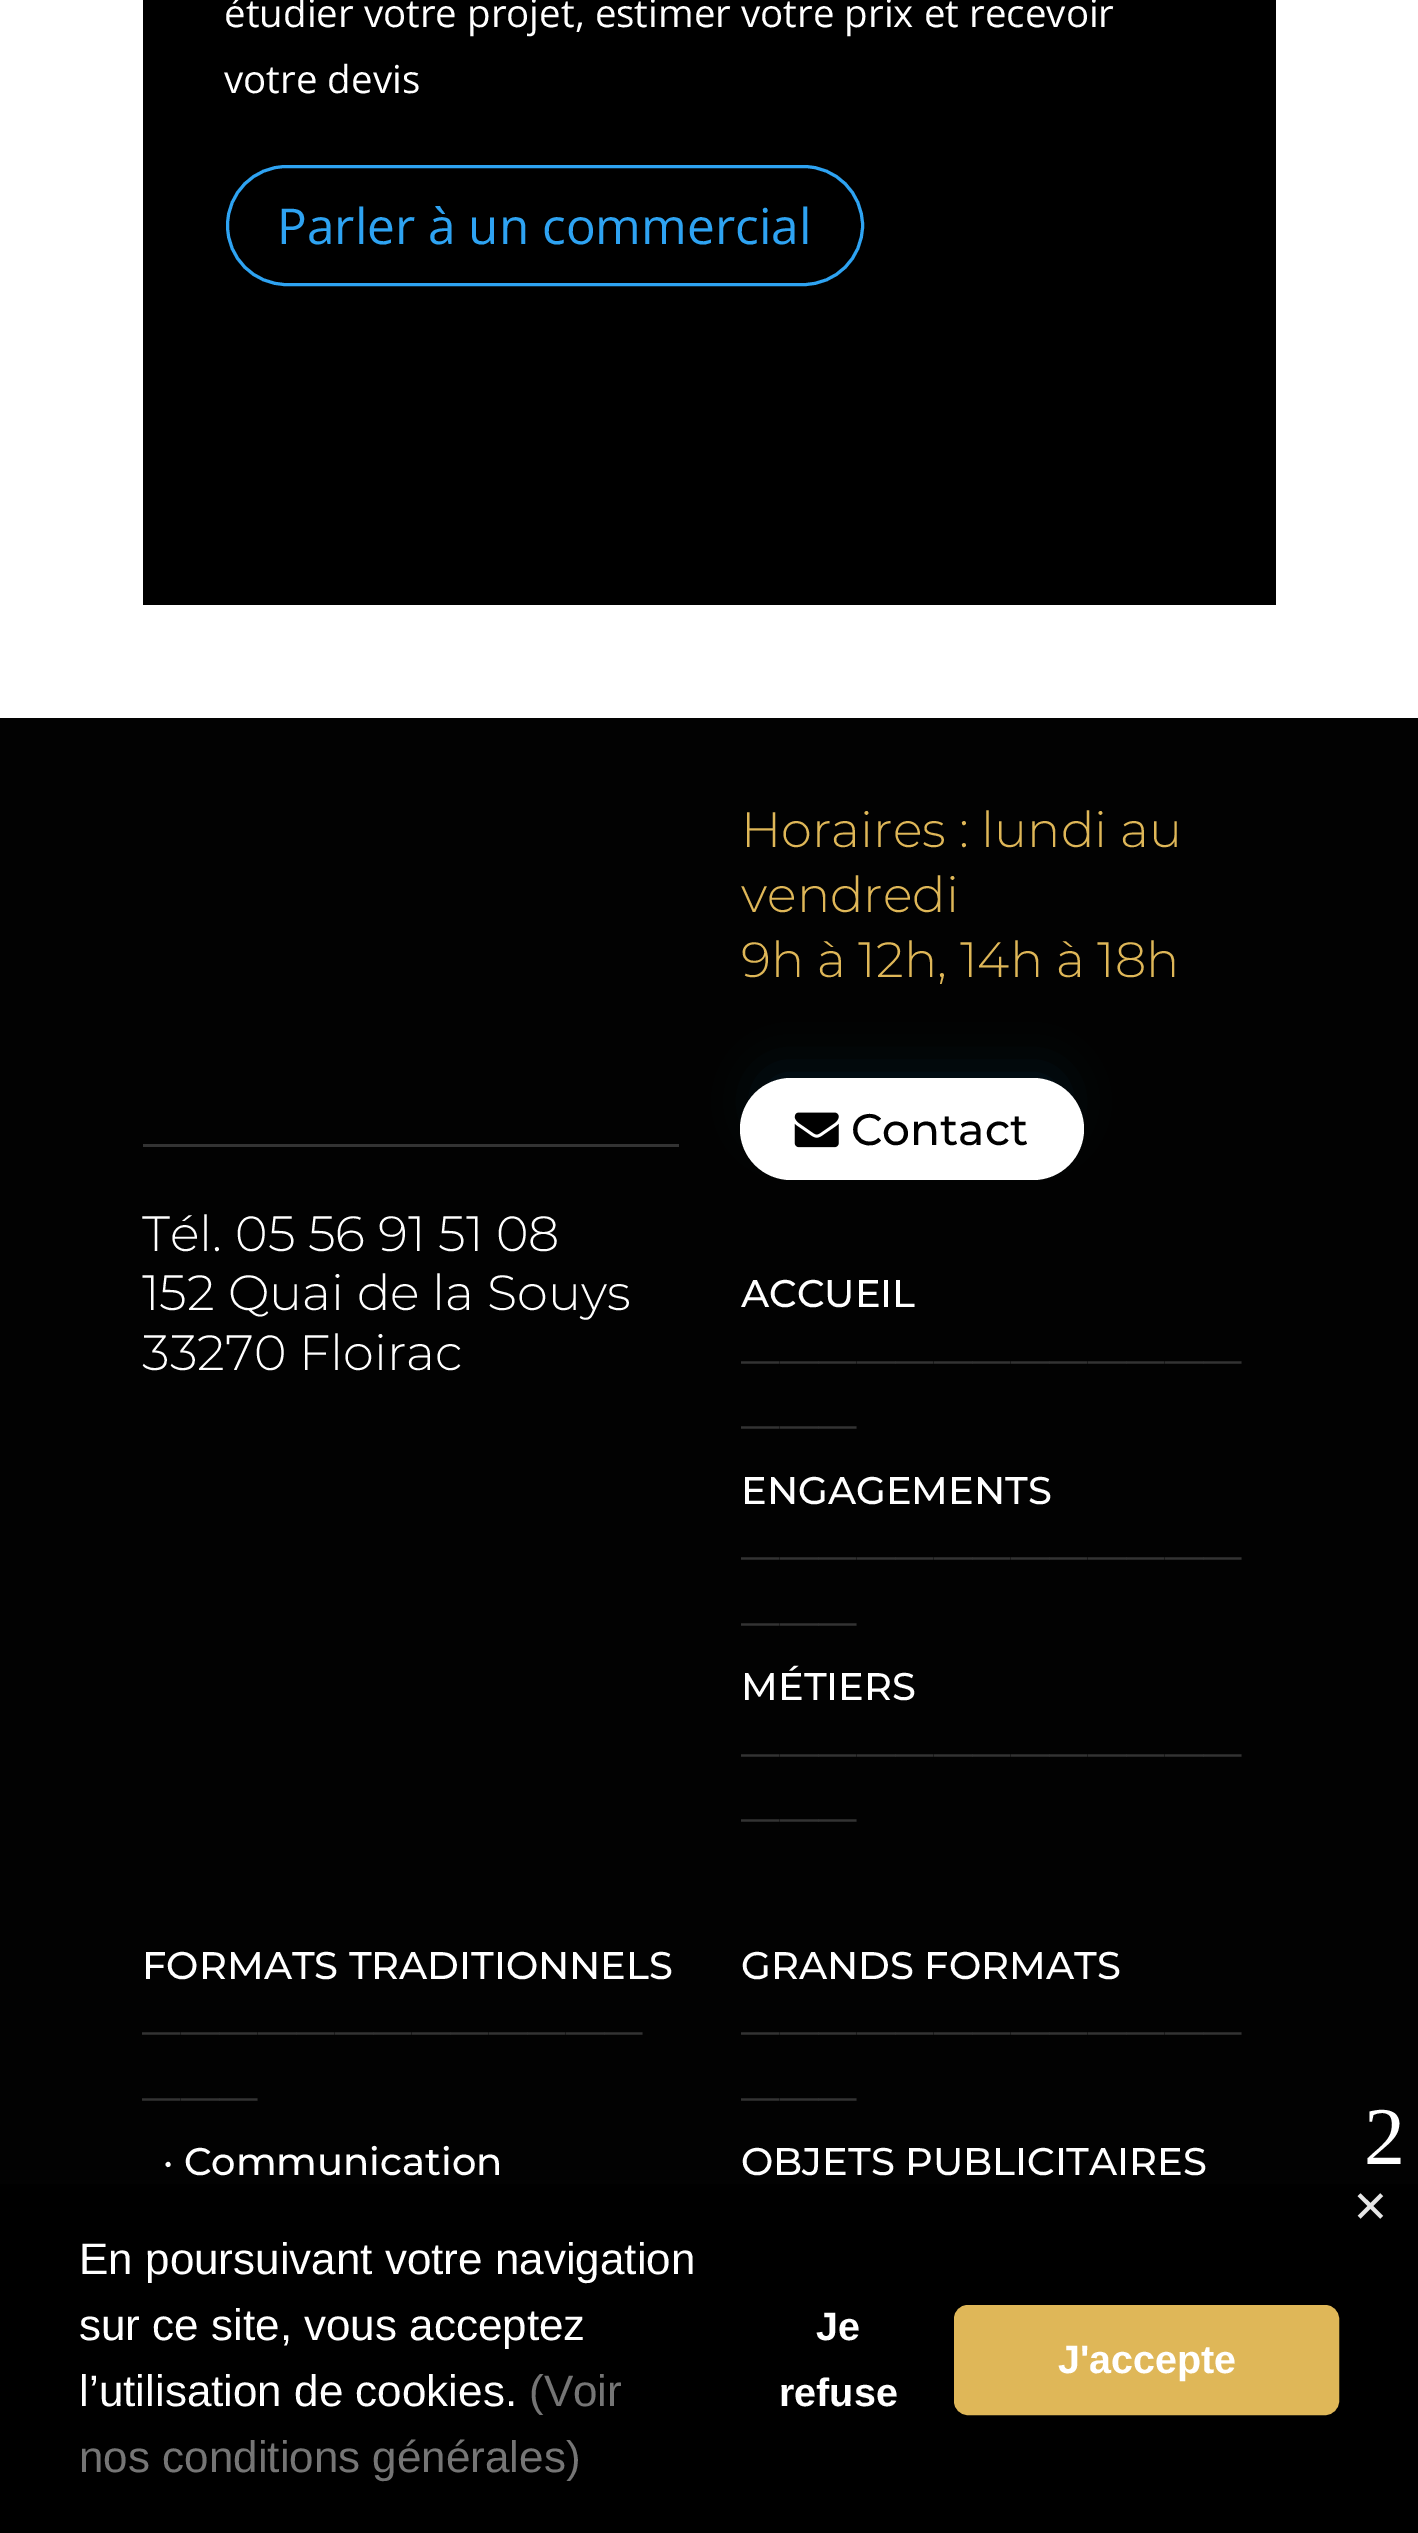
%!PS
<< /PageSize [1418 2533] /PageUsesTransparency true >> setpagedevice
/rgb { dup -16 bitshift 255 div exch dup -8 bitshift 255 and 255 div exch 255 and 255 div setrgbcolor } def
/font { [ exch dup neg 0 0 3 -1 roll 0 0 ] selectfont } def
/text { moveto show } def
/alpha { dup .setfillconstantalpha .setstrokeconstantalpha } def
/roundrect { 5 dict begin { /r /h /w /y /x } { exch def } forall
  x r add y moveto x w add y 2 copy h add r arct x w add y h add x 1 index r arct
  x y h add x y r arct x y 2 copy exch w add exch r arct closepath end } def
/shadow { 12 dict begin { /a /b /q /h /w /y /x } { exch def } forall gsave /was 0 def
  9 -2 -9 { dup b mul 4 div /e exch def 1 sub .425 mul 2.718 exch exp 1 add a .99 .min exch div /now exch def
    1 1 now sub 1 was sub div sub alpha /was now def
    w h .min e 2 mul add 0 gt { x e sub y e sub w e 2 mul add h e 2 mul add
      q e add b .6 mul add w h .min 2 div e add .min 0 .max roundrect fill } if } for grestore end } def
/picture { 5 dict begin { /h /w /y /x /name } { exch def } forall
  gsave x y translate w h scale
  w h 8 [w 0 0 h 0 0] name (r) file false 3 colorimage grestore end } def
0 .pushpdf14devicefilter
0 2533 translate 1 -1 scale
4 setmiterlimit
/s1 { /OpenSans-Regular 38.5 font 16#FFFFFF rgb } def
/s2 { /OpenSans-Regular 49.5 font 16#2EA3F2 rgb } def
/s3 { /Montserrat-Light 49.5 font 16#FFFFFF rgb } def
/s4 { /Montserrat-Light 49.5 font 16#DFB758 rgb } def
/s5 { /Montserrat-Medium 44 font 16#000000 rgb } def
/s6 { /Montserrat-Medium 38.5 font 16#FFFFFF rgb } def
/s7 { /Montserrat-Medium 38.5 font 16#333333 rgb } def
/s8 { /LiberationSerif-Regular 82 font 16#FFFFFF rgb } def
/s9 { /DejaVuSans-Regular 44 font 16#E6E6E6 rgb } def
/s10 { /LiberationSans-Regular 44 font 16#FFFFFF rgb } def
/s11 { /LiberationSans-Regular 44 font 16#757575 rgb } def
/s12 { /LiberationSans-Bold 39.5 font 16#FFFFFF rgb } def
16#FFFFFF rgb
0 0 1418 2533 rectfill
16#000000 rgb
143 0 1133 605 rectfill
s1
(étudier votre projet, estimer votre prix et recevoir) 224 27 text
(votre devis) 224 93 text
16#2EA3F2 rgb
3 setlinewidth
227.5 166.5 635 118 59 roundrect stroke
s2
(Parler à un commercial) 277 244 text
16#020202 rgb
0 718 1418 1466 rectfill
16#333333 rgb
143 1144 536 3 rectfill
s3
(Tél. 05 56 91 51 08) 142 1251 text
(152 Quai de la Souys) 142 1310 text
(33270 Floirac) 142 1370 text
s4
(Horaires : lundi au) 741 847 text
(vendredi) 741 912 text
(9h à 12h, 14h à 18h) 741 977 text
16#00457A rgb
767 1078 289 47 23.5 25 0.3 shadow
16#FFFFFF rgb
740 1078 344 102 51 roundrect fill
(pic1.raw) 794 1112 45 36 picture
s5
(Contact) 851 1145 text
s6
(ACCUEIL) 741 1307 text
s7
(—————————————) 741 1373 text
(———) 741 1438 text
s6
(ENGAGEMENTS) 741 1504 text
s7
(—————————————) 741 1569 text
(———) 741 1635 text
s6
(MÉTIERS) 741 1700 text
s7
(—————————————) 741 1766 text
(———) 741 1831 text
s6
(FORMATS TRADITIONNELS) 142 1979 text
s7
(—————————————) 142 2044 text
(———) 142 2110 text
s6
(· Communication) 163 2175 text
(GRANDS FORMATS) 741 1979 text
s7
(—————————————) 741 2044 text
(———) 741 2110 text
s6
(OBJETS PUBLICITAIRES) 741 2175 text
s8
(2) 1364 2164 text
16#000000 rgb
0 2184 1418 349 rectfill
s9
(✕) 1352 2222 text
s10
(En poursuivant votre navigation) 79 2274 text
(sur ce site, vous acceptez) 79 2340 text
(l’utilisation de cookies.) 79 2406 text
s11
(\(Voir) 529 2406 text
(nos conditions générales\)) 79 2472 text
s12
(Je) 816 2340 text
(refuse) 779 2406 text
16#DFB758 rgb
957 2308 379 104 11 roundrect gsave fill grestore
6 setlinewidth
stroke
s12
(J'accepte) 1058 2373 text
.poppdf14devicefilter showpage
